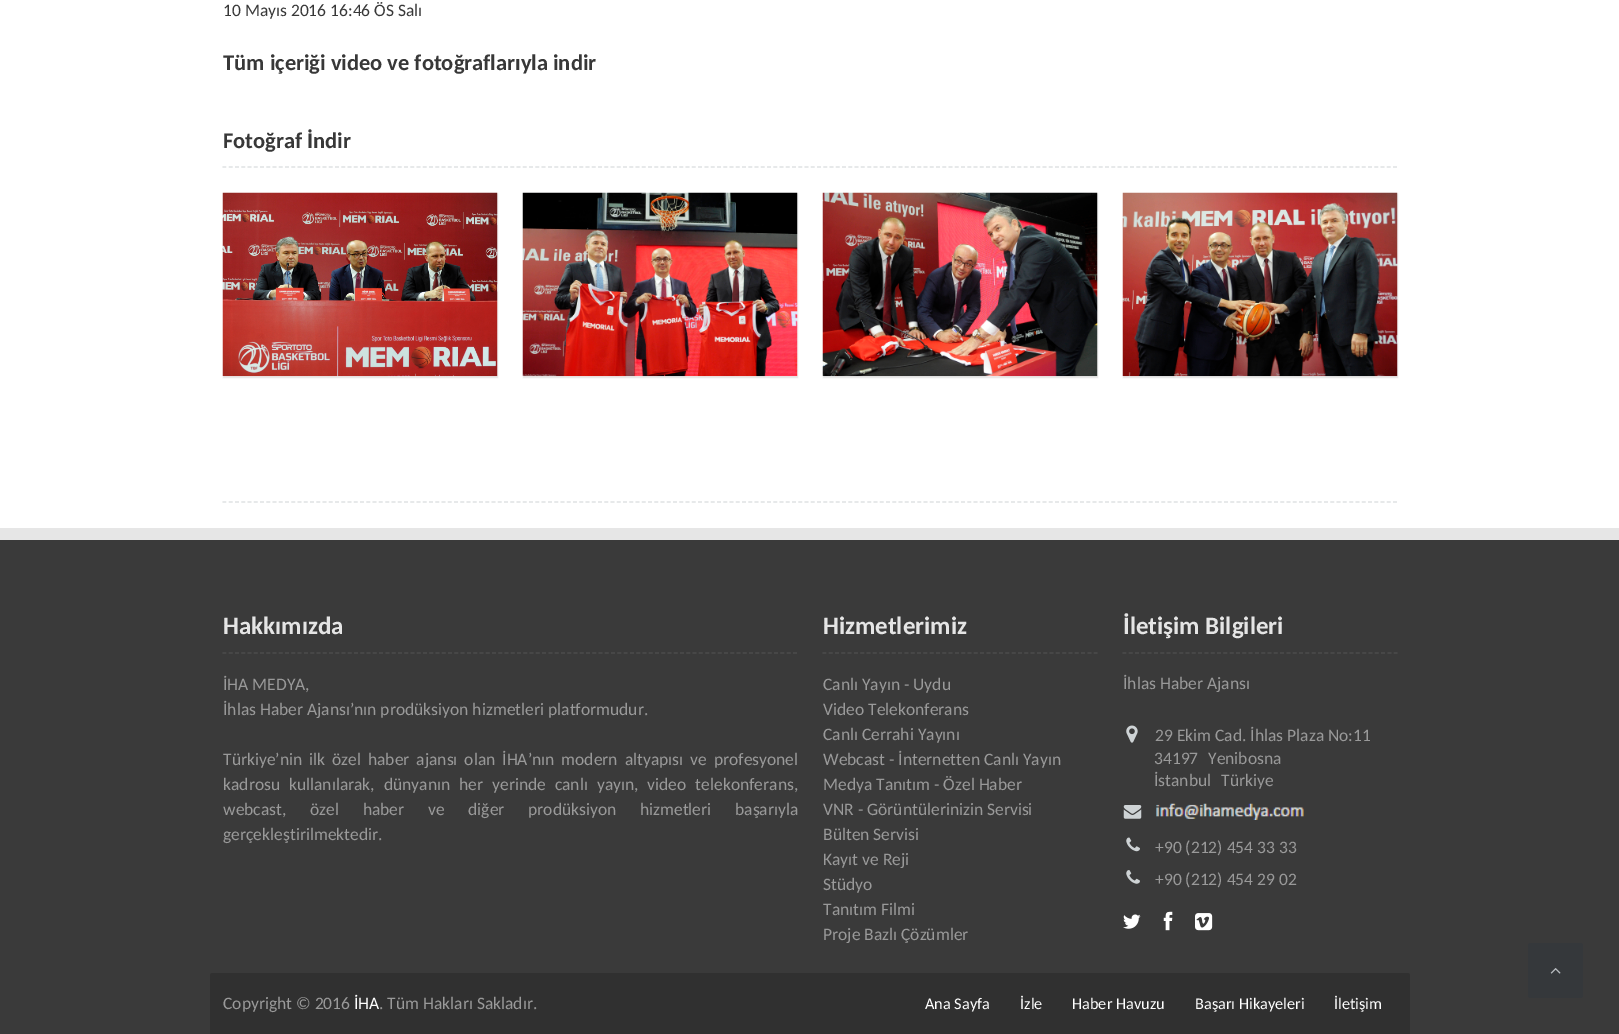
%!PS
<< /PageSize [1619 1034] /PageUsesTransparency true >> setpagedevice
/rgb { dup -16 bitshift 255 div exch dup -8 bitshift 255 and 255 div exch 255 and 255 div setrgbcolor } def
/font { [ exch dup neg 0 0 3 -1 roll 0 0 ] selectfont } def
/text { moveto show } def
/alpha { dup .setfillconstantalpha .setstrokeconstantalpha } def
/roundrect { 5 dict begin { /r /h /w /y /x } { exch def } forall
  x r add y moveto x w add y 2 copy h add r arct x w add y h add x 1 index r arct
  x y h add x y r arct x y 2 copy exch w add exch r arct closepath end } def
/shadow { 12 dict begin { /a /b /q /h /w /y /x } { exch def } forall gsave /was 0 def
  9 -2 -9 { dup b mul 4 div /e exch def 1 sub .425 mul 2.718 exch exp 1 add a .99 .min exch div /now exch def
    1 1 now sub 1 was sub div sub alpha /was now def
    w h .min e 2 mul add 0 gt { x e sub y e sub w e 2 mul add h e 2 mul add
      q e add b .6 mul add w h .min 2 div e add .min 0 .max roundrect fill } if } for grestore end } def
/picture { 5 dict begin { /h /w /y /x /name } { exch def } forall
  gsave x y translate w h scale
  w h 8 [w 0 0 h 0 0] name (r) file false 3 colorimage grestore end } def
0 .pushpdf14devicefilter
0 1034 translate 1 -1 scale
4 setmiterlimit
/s1 { /Carlito-Regular 17.5 font 16#383838 rgb } def
/s2 { /Carlito-Bold 22.5 font 16#383838 rgb } def
/s3 { /Carlito-Bold 25 font 16#E5E5E5 rgb } def
/s4 { /Carlito-Regular 17.5 font 16#999999 rgb } def
/s5 { /Carlito-Regular 17.5 font 16#FFFFFF rgb } def
/s6 { /Carlito-Regular 16.25 font 16#FFFFFF rgb } def
16#FFFFFF rgb
0 0 1619 1034 rectfill
s1
(10 Mayıs 2016 16:46 ÖS Salı) 223 16 text
s2
(Tüm içeriği video ve fotoğraflarıyla indir) 223 70 text
16#DEE1E2 rgb
1.2 setlinewidth
[3.75 2.51] 0 setdash
222.5 167 moveto 1397.5 167 lineto stroke
s2
(Fotoğraf İndir) 223 148 text
16#000000 rgb
223 194 275 184 0 0.5 0.1 shadow
(pic1.raw) 222 192 276 185 picture
523 194 275 184 0 0.5 0.1 shadow
(pic2.raw) 522 192 276 185 picture
823 194 275 184 0 0.5 0.1 shadow
(pic3.raw) 822 192 276 185 picture
1123 194 275 184 0 0.5 0.1 shadow
(pic4.raw) 1122 192 276 185 picture
16#DEE1E2 rgb
222.5 502 moveto 1397.5 502 lineto stroke
16#3A3A3A rgb
0 540 1619 494 rectfill
16#E6E6E6 rgb
0 528 1619 12 rectfill
16#4C4C4C rgb
[3.75 2.52] 0 setdash
222.5 653 moveto 797.5 653 lineto stroke
s3
(Hakkımızda) 223 634 text
s4
(İHA MEDYA,) 223 690 text
(İhlas Haber Ajansı’nın prodüksiyon hizmetleri platformudur.) 223 715 text
223 765 moveto 3 0 32 (Türkiye’nin ilk özel haber ajansı olan İHA’nın modern altyapısı ve profesyonel) widthshow
223 790 moveto 5 0 32 (kadrosu kullanılarak, dünyanın her yerinde canlı yayın, video telekonferans,) widthshow
223 815 moveto 19.75 0 32 (webcast, özel haber ve diğer prodüksiyon hizmetleri başarıyla) widthshow
(gerçekleştirilmektedir.) 223 840 text
16#4C4C4C rgb
[3.75 2.56] 0 setdash
822.5 653 moveto 1097.5 653 lineto stroke
s3
(Hizmetlerimiz) 823 634 text
s4
(Canlı Yayın - Uydu) 823 690 text
(Video Telekonferans) 823 715 text
(Canlı Cerrahi Yayını) 823 740 text
(Webcast - İnternetten Canlı Yayın) 823 765 text
(Medya Tanıtım - Özel Haber) 823 790 text
(VNR - Görüntülerinizin Servisi) 823 815 text
(Bülten Servisi) 823 840 text
(Kayıt ve Reji) 823 865 text
(Stüdyo) 823 890 text
(Tanıtım Filmi) 823 915 text
(Proje Bazlı Çözümler) 823 940 text
16#4C4C4C rgb
1122.5 653 moveto 1397.5 653 lineto stroke
s3
(İletişim Bilgileri) 1123 634 text
s4
(İhlas Haber Ajansı) 1123 689 text
(pic5.raw) 1126 725 12 18 picture
(29 Ekim Cad. İhlas Plaza No:11) 1155 741 text
(34197) 1154 764 text
(Yenibosna) 1208 764 text
(İstanbul) 1154 786 text
(Türkiye) 1221 786 text
(pic6.raw) 1123 805 19 14 picture
(pic7.raw) 1156 803 148 17 picture
(pic8.raw) 1126 837 14 15 picture
(+90 \(212\) 454 33 33) 1155 853 text
(pic9.raw) 1126 870 14 14 picture
(+90 \(212\) 454 29 02) 1155 885 text
(pic10.raw) 1123 914 18 15 picture
(pic11.raw) 1163 911 10 20 picture
(pic12.raw) 1195 913 18 18 picture
16#303030 rgb
212.5 973 moveto 1407.5 973 lineto 1409 973 1410 974 1410 975.5 curveto 1410 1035 lineto 210 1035 lineto 210 975.5 lineto 210 974 211 973 212.5 973 curveto closepath fill
s4
(Copyright © 2016) 223 1009 text
s5
(İHA) 354 1009 text
s4
(. Tüm Hakları Sakladır.) 379 1009 text
s6
(Ana Sayfa) 925 1009 text
(İzle) 1020 1009 text
(Haber Havuzu) 1072 1009 text
(Başarı Hikayeleri) 1195 1009 text
(İletişim) 1334 1009 text
16#35383B rgb
1528 943 55 55 2.5 roundrect fill
(pic13.raw) 1550 968 11 6 picture
.poppdf14devicefilter showpage
